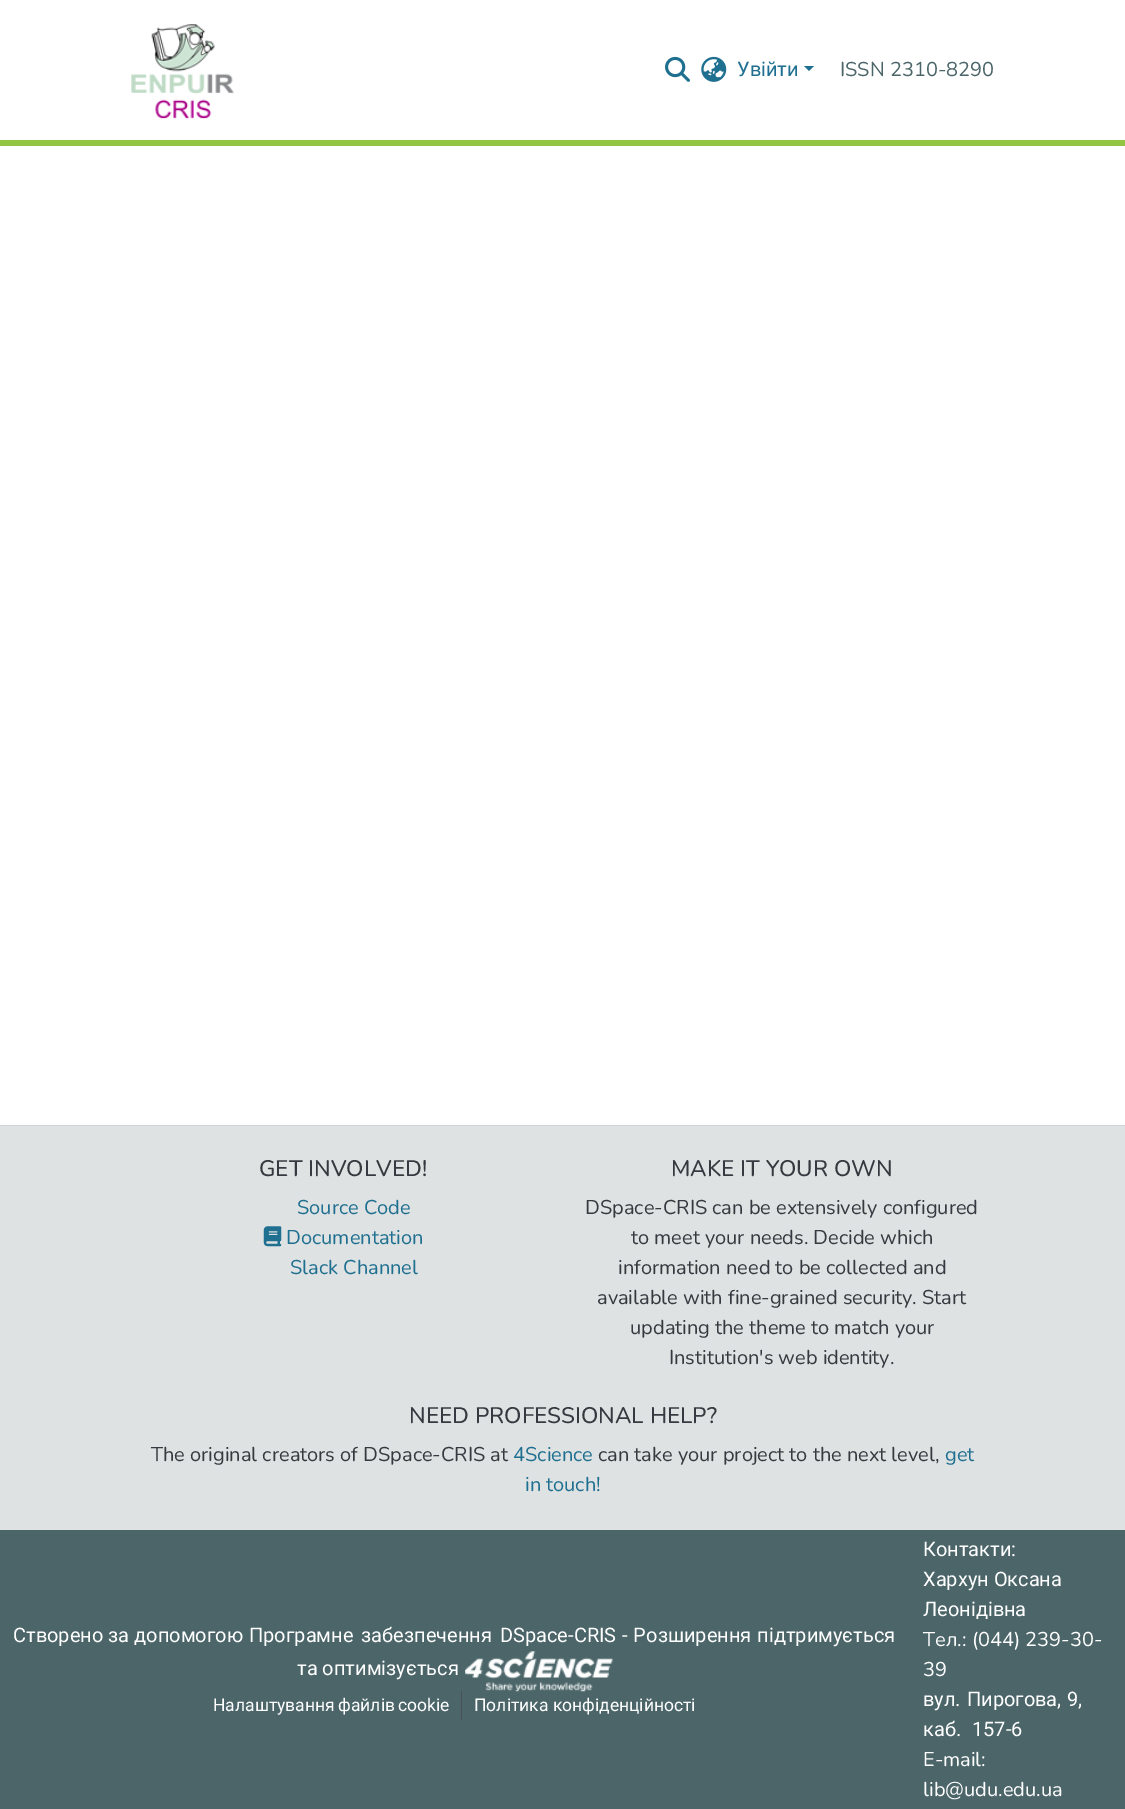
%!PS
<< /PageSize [1125 1809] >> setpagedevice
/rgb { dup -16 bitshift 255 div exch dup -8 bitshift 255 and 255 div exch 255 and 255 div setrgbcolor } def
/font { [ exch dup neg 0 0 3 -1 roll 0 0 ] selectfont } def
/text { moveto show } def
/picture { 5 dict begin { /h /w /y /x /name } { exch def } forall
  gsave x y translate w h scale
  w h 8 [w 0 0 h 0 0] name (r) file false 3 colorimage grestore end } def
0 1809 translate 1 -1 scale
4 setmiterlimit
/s1 { /Roboto-Regular 20 font 16#1E6F90 rgb } def
/s2 { /Nunito-Regular 20 font 16#4B6569 rgb } def
/s3 { /Nunito-Medium 22.5 font 16#343A40 rgb } def
/s4 { /Nunito-Regular 20 font 16#1E6F90 rgb } def
/s5 { /Nunito-Regular 20 font 16#343A40 rgb } def
/s6 { /Roboto-Regular 20 font 16#FFFFFF rgb } def
/s7 { /Roboto-Regular 17.5 font 16#FFFFFF rgb } def
/s8 { /Nunito-Regular 20 font 16#FFFFFF rgb } def
16#FFFFFF rgb
0 0 1125 1809 rectfill
16#92C642 rgb
0 140 1125 6 rectfill
(pic1.raw) 131 24 103 95 picture
(pic2.raw) 665 56 25 26 picture
(pic3.raw) 701 56 26 26 picture
s1
(Увійти) 737 76 text
804 66 moveto 814 66 lineto 809 71 lineto closepath fill
s2
(ISSN 2310-8290) 840 76 text
16#CED4DA rgb
0 1125 1125 1 rectfill
16#DFE2E2 rgb
0 1126 1125 404 rectfill
s3
(GET INVOLVED!) 259 1176 text
s4
(Source Code) 297 1214 text
(pic4.raw) 263 1226 19 21 picture
(Documentation) 286 1244 text
(Slack Channel) 290 1274 text
s3
(MAKE IT YOUR OWN) 671 1176 text
s5
(DSpace-CRIS can be extensively configured) 585 1214 text
(to meet your needs. Decide which) 631 1244 text
(information need to be collected and) 618 1274 text
(available with fine-grained security. Start) 597 1304 text
(updating the theme to match your) 630 1334 text
(Institution's web identity.) 669 1364 text
s3
(NEED PROFESSIONAL HELP?) 409 1423 text
s5
(The original creators of DSpace-CRIS at) 151 1461 text
s4
(4Science) 513 1461 text
s5
(can take your project to the next level,) 598 1461 text
s4
(get) 945 1461 text
(in touch!) 525 1491 text
16#4B6569 rgb
0 1530 1125 279 rectfill
s6
(Створено за допомогою) 13 1642 text
249 1642 moveto 3 0 32 (Програмне забезпечення DSpace-CRIS) widthshow
622 1642 moveto 1 0 32 (- Розширення підтримується) widthshow
(та оптимізується) 297 1675 text
(pic5.raw) 465 1651 148 41 picture
/Roboto-Regular 17.5 font
213 1711 moveto -1 0 32 (Налаштування файлів cookie) widthshow
16#495057 rgb
461 1691 1 29 rectfill
s7
(Політика конфіденційності) 474 1711 text
s6
(Контакти:) 923 1556 text
(Хархун Оксана) 923 1586 text
(Леонідівна) 923 1616 text
s8
(Тел.: \(044\) 239-30-) 923 1646 text
(39) 923 1676 text
/Roboto-Regular 20 font
923 1706 moveto 1 0 32 (вул. Пирогова, 9,) widthshow
923 1736 moveto 6 0 32 (каб. 157-6) widthshow
s8
(E-mail:) 923 1766 text
(lib@udu.edu.ua) 923 1796 text
showpage
